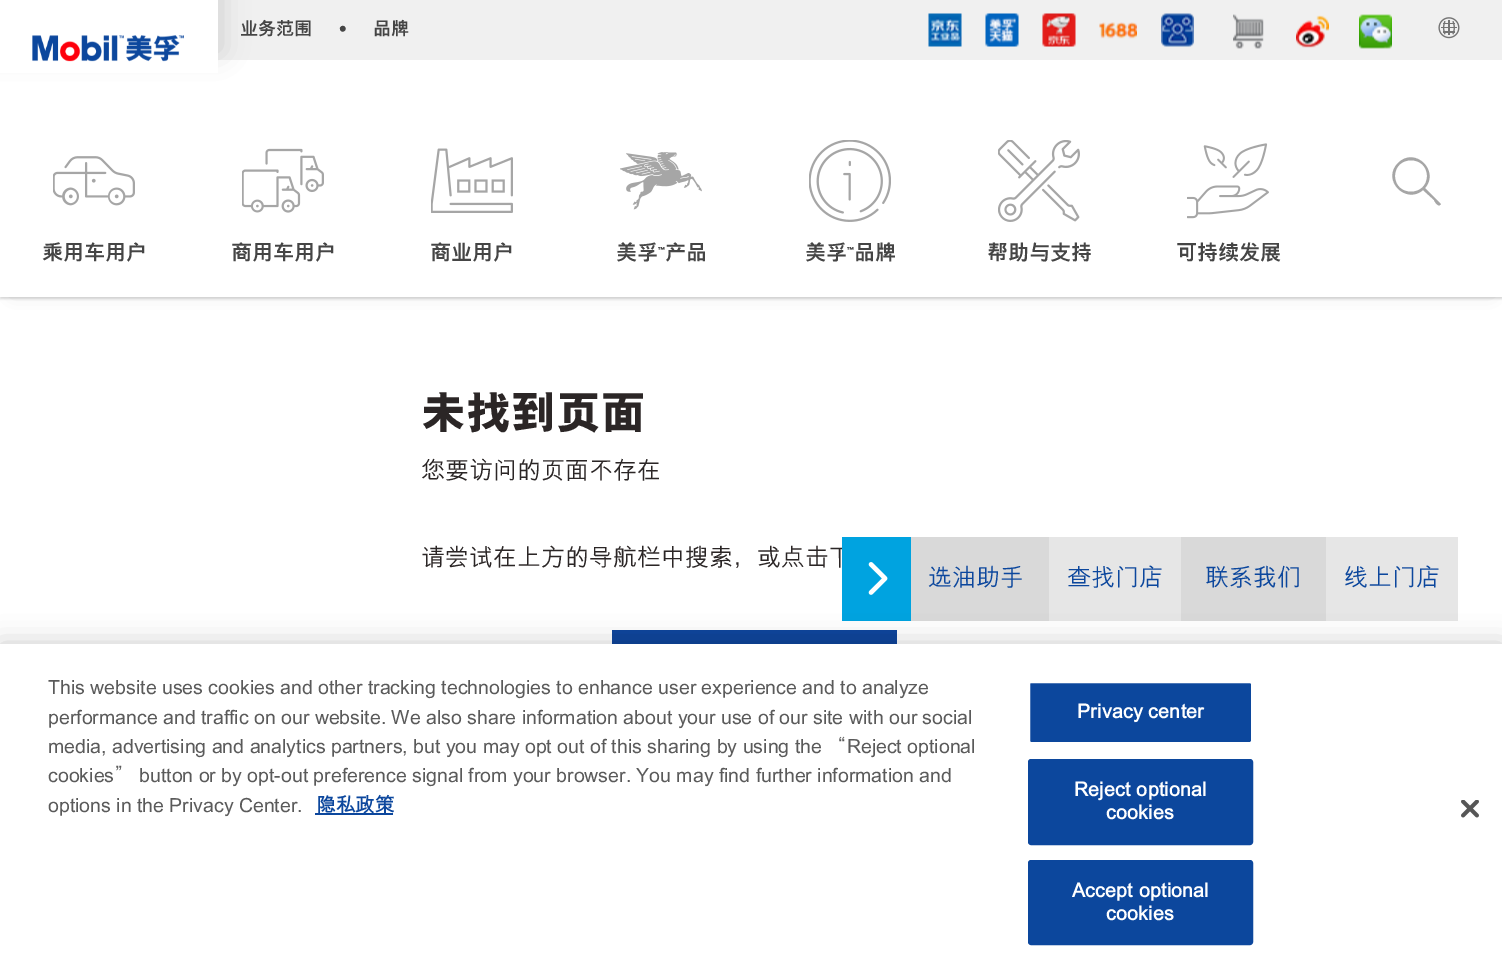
%!PS
<< /PageSize [1502 974] /PageUsesTransparency true >> setpagedevice
/rgb { dup -16 bitshift 255 div exch dup -8 bitshift 255 and 255 div exch 255 and 255 div setrgbcolor } def
/font { [ exch dup neg 0 0 3 -1 roll 0 0 ] selectfont } def
/text { moveto show } def
/alpha { dup .setfillconstantalpha .setstrokeconstantalpha } def
/roundrect { 5 dict begin { /r /h /w /y /x } { exch def } forall
  x r add y moveto x w add y 2 copy h add r arct x w add y h add x 1 index r arct
  x y h add x y r arct x y 2 copy exch w add exch r arct closepath end } def
/shadow { 12 dict begin { /a /b /q /h /w /y /x } { exch def } forall gsave /was 0 def
  9 -2 -9 { dup b mul 4 div /e exch def 1 sub .425 mul 2.718 exch exp 1 add a .99 .min exch div /now exch def
    1 1 now sub 1 was sub div sub alpha /was now def
    w h .min e 2 mul add 0 gt { x e sub y e sub w e 2 mul add h e 2 mul add
      q e add b .6 mul add w h .min 2 div e add .min 0 .max roundrect fill } if } for grestore end } def
/picture { 5 dict begin { /h /w /y /x /name } { exch def } forall
  gsave x y translate w h scale
  w h 8 [w 0 0 h 0 0] name (r) file false 3 colorimage grestore end } def
0 .pushpdf14devicefilter
0 974 translate 1 -1 scale
4 setmiterlimit
/s1 { /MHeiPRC-Black 18 font 16#454545 rgb } def
/s2 { /LiberationSans-Regular 22 font 16#454545 rgb } def
/s3 { /MHeiPRC-Black 21 font 16#454545 rgb } def
/s4 { /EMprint-SemiBold 21 font 16#454545 rgb } def
/s5 { /MHeiPRC-Bold 45 font 16#2B2626 rgb } def
/s6 { /MHeiPRC-Medium 24 font 16#2B2626 rgb } def
/s7 { /MHeiPRC-Medium 24 font 16#0C479D rgb } def
/s8 { /MHeiPRC-Medium 19.5 font 16#5A5A5A rgb } def
/s9 { /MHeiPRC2-Bold 19.5 font 16#0C479D rgb } def
16#FFFFFF rgb
0 0 1502 974 rectfill
16#C4C4C4 rgb
14 20 1476 270 0 9 1 shadow
16#111111 rgb
0 2 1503 297 0 1 0.15 shadow
16#F0F0F0 rgb
218 0 1284 60 rectfill
16#FFFFFF rgb
0 60 1502 237 rectfill
16#CCCCCC rgb
-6 -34 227 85 0 13.5 1 shadow
16#FFFFFF rgb
0 0 218 73 rectfill
(pic1.raw) 32 35 152 27 picture
s1
(业务范围) 240 35 text
s2
(•) 339 36 text
s1
(品牌) 373 35 text
(pic2.raw) 928 13 34 34 picture
(pic3.raw) 985 13 34 34 picture
(pic4.raw) 1042 13 34 34 picture
(pic5.raw) 1099 22 38 17 picture
(pic6.raw) 1161 13 33 34 picture
(pic7.raw) 1233 14 31 35 picture
(pic8.raw) 1296 15 33 33 picture
(pic9.raw) 1359 14 33 35 picture
(pic10.raw) 1438 17 22 22 picture
16#A6A6A6 rgb
1440 203 moveto 1425 188 lineto 1440 171 1415 146 1398 163 curveto 1381 180 1406 205 1423 190 curveto 1434 200 lineto 1434 201 1438 207 1440 205 curveto 1441 205 1441 204 1440 203 curveto closepath 1395 176 moveto 1395 155 1427 155 1427 176 curveto 1427 197 1395 197 1395 176 curveto closepath fill
(pic11.raw) 53 156 82 50 picture
s3
(乘用车用户) 42 260 text
(pic12.raw) 242 148 82 65 picture
(商用车用户) 231 260 text
(pic13.raw) 431 148 82 65 picture
(商业用户) 430 260 text
(pic14.raw) 620 152 82 58 picture
(美孚) 616 260 text
s4
(™) 658 260 text
s3
(产品) 665 260 text
(pic15.raw) 809 140 82 82 picture
(美孚) 805 260 text
s4
(™) 847 260 text
s3
(品牌) 854 260 text
(pic16.raw) 998 140 82 82 picture
(帮助与支持) 987 260 text
(pic17.raw) 1187 143 82 76 picture
(可持续发展) 1176 260 text
s5
(未找到页面) 421 429 text
s6
(您要访问的页面不存在) 421 479 text
(请尝试在上方的导航栏中搜索，或点击下) 421 566 text
16#0E469B rgb
612 630 285 14 rectfill
16#00A3E0 rgb
842 537 69 84 rectfill
(pic18.raw) 868 562 20 33 picture
16#D9D9D9 rgb
911 537 415 84 rectfill
s7
(选油助手) 928 586 text
16#E6E6E6 rgb
1049 537 132 84 rectfill
s7
(查找门店) 1067 586 text
(联系我们) 1205 586 text
16#E6E6E6 rgb
1326 537 132 84 rectfill
s7
(线上门店) 1344 586 text
16#000000 rgb
0 644 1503 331 0 13.5 0.2 shadow
16#FFFFFF rgb
0 644 1502 330 rectfill
s8
(This website uses cookies and other tracking technologies to enhance user experience and to analyze) 48 694 text
(performance and traffic on our website. We also share information about your use of our site with our social) 48 724 text
(media, advertising and analytics partners, but you may opt out of this sharing by using the “Reject optional) 48 753 text
(cookies” button or by opt-out preference signal from your browser. You may find further information and) 48 782 text
(options in the Privacy Center.) 48 812 text
16#0C479D rgb
315 813 78 2 rectfill
s9
(隐私政策) 316 812 text
1029 682 223 61 2 roundrect gsave fill grestore
16#FFFFFF rgb
2 setlinewidth
stroke
1077 718 moveto 0.25 0 (Privacy center) ashow
16#0C479D rgb
1029 760 223 84 2 roundrect gsave fill grestore
stroke
16#FFFFFF rgb
1074 796 moveto 0.25 0 (Reject optional) ashow
1106 819 moveto 0.25 0 (cookies) ashow
16#0C479D rgb
1029 861 223 83 2 roundrect gsave fill grestore
stroke
16#FFFFFF rgb
1072 897 moveto 0.25 0 (Accept optional) ashow
1106 920 moveto 0.25 0 (cookies) ashow
(pic19.raw) 1461 800 18 18 picture
.poppdf14devicefilter showpage
